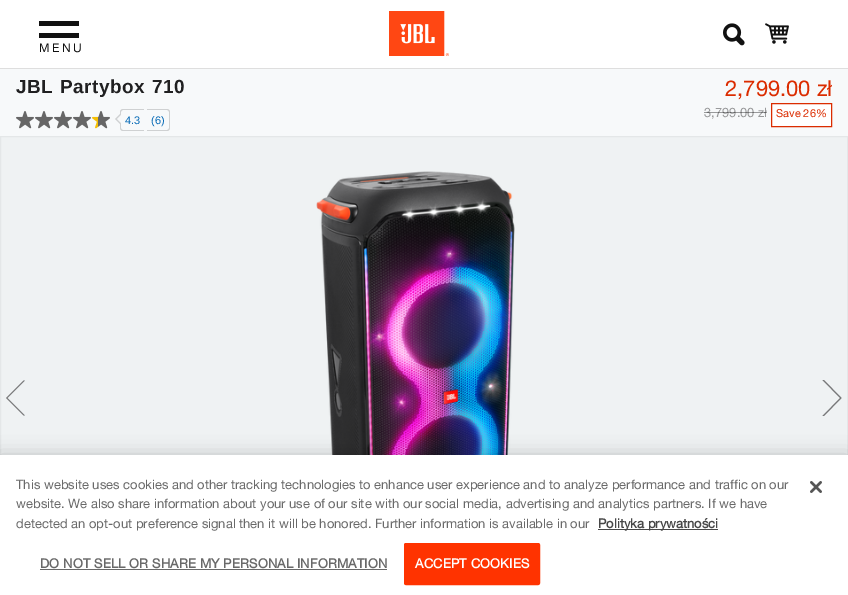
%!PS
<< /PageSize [848 595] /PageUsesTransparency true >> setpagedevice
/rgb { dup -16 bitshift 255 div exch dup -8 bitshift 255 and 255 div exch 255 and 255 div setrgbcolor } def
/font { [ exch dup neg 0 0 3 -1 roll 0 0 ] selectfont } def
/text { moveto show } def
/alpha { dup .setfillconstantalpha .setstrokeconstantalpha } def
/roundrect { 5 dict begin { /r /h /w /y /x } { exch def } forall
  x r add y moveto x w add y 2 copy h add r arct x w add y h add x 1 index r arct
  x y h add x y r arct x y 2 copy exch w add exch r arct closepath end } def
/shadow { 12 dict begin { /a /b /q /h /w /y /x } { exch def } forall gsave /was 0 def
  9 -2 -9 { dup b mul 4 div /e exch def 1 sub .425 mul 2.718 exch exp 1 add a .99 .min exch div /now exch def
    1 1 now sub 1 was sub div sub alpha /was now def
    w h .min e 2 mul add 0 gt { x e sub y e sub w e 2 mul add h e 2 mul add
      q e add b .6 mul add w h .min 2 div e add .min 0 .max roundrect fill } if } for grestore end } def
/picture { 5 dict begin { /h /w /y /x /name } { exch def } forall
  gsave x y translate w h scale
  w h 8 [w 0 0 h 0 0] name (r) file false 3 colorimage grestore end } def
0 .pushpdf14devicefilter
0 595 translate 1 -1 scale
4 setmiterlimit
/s1 { /LiberationSans-Regular 11 font 16#0066B4 rgb } def
/s2 { /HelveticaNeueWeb-Regular 22 font 16#DB2C00 rgb } def
/s3 { /HelveticaNeueWeb-Regular 13 font 16#999A9B rgb } def
/s4 { /HelveticaNeueWeb-Regular 11 font 16#DB2C00 rgb } def
/s5 { /HelveticaNeueWeb-Regular 13 font 16#696969 rgb } def
/s6 { /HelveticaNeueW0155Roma-Bold 13 font 16#474747 rgb } def
16#FFFFFF rgb
0 0 848 595 rectfill
16#DEDEDE rgb
0 68 848 1 rectfill
(pic1.raw) 389 11 60 45 picture
(pic2.raw) 723 23 22 23 picture
(pic3.raw) 765 23 24 21 picture
16#111111 rgb
39 21 40 5 rectfill
39 33 40 5 rectfill
/HelveticaNeueWeb-Regular 12 font
39 52 moveto 2.5 0 (MENU) ashow
16#F7F9FA rgb
0 69 848 67 rectfill
/LiberationSans-Bold 19 font
16#202021 rgb
16 93 moveto 0.6 0 (JBL Partybox 710) ashow
(pic4.raw) 16 111 18 18 picture
(pic4.raw) 35 111 18 18 picture
(pic4.raw) 54 111 18 18 picture
(pic4.raw) 73 111 18 18 picture
(pic5.raw) 92 111 18 18 picture
16#CFD1D2 rgb
123 109 moveto 144 109 lineto 144 131 lineto 123 131 lineto 121.5 131 120 129.5 120 128 curveto 120 112 lineto 120 110.5 121.5 109 123 109 curveto closepath 123 110 moveto 144 110 lineto 144 130 lineto 123 130 lineto 122 130 121 129 121 128 curveto 121 112 lineto 121 111 122 110 123 110 curveto closepath eofill
120 114 moveto 120 124 lineto 115 119 lineto closepath fill
16#F7F9FA rgb
121 115 moveto 121 123 lineto 117 119 lineto closepath fill
s1
(4.3) 125 124 text
16#CFD1D2 rgb
147 109 moveto 167 109 lineto 168.5 109 170 110.5 170 112 curveto 170 128 lineto 170 129.5 168.5 131 167 131 curveto 147 131 lineto closepath 147 110 moveto 167 110 lineto 168 110 169 111 169 112 curveto 169 128 lineto 169 129 168 130 167 130 curveto 147 130 lineto closepath eofill
s1
(\(6\)) 151 124 text
s2
(2,799.00 zł) 725 96 text
s3
(3,799.00 zł) 704 117 text
0.38 alpha
16#000000 rgb
704 112 63 1 rectfill
1 alpha
16#FFFFFF rgb
771.5 103.5 moveto 831.5 103.5 lineto 831.5 126.5 lineto 771.5 126.5 lineto closepath gsave fill grestore
16#DB2C00 rgb
stroke
s4
(Save 26%) 776 117 text
16#EFF2F3 rgb
1 137 846 318 rectfill
16#E4E7E8 rgb
0.5 136.5 847 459 rectstroke
16#78797A rgb
25 380.5 moveto 7.5 398 lineto 25 415.5 lineto 23.5 415.5 lineto 6 398 lineto 23.5 380.5 lineto closepath eofill
(pic6.raw) 316 171 199 284 picture
822.5 416 moveto 840 398 lineto 822.5 380 lineto 824 380 lineto 841.5 398 lineto 824 416 lineto closepath eofill
16#000000 rgb
0 455 848 140 0 9 0.2 shadow
16#FFFFFF rgb
0 455 848 140 rectfill
s5
(This website uses cookies and other tracking technologies to enhance user experience and to analyze performance and traffic on our) 16 489 text
(website. We also share information about your use of our site with our social media, advertising and analytics partners. If we have) 16 508 text
(detected an opt-out preference signal then it will be honored. Further information is available in our) 16 528 text
16#474747 rgb
598 529 120 1 rectfill
s6
(Polityka prywatności) 598 528 text
16#696969 rgb
40 568 moveto 0.15 0 (DO NOT SELL OR SHARE MY PERSONAL INFORMATION) ashow
40 569 347 1 rectfill
16#FF3300 rgb
404.5 543.5 135 41 1.5 roundrect gsave fill grestore
stroke
16#FFFFFF rgb
415 568 moveto 0.15 0 (ACCEPT COOKIES) ashow
(pic7.raw) 810 481 12 12 picture
.poppdf14devicefilter showpage
